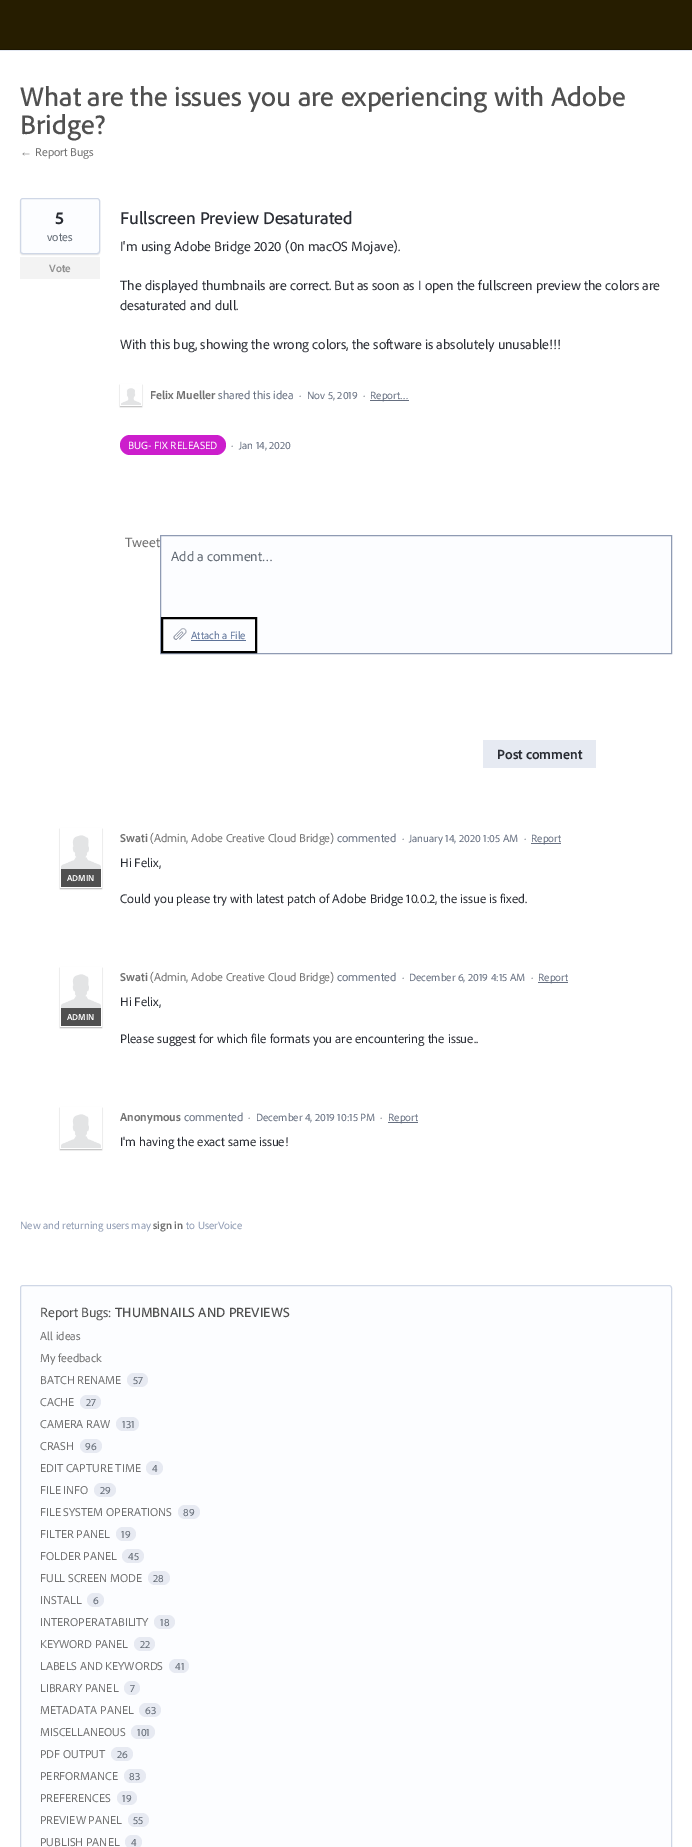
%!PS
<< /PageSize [692 1847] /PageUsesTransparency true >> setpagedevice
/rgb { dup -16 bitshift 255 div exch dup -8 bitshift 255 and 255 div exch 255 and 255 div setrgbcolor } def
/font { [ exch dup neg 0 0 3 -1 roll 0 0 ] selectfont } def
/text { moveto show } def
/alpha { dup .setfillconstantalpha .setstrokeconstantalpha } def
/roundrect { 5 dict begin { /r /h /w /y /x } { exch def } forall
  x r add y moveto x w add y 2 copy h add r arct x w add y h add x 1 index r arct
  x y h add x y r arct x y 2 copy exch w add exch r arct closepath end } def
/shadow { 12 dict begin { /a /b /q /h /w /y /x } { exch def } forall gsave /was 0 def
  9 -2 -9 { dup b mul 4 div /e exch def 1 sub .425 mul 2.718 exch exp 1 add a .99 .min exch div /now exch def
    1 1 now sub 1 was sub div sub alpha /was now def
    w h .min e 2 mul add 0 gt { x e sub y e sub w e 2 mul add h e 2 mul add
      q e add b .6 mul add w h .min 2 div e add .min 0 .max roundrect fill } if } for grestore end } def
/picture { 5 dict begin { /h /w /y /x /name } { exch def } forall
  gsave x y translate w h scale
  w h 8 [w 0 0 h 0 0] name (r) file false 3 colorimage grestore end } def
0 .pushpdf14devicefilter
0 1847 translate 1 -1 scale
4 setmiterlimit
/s1 { /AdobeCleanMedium-Medium 28 font 16#505050 rgb } def
/s2 { /LiberationSans-Regular 12 font 16#707070 rgb } def
/s3 { /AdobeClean-Regular 12 font 16#707070 rgb } def
/s4 { /AdobeClean-Bold 18 font 16#292C33 rgb } def
/s5 { /AdobeClean-Regular 12 font 16#616973 rgb } def
/s6 { /AdobeClean-Bold 11 font 16#8F8F8F rgb } def
/s7 { /AdobeCleanMedium-Medium 18 font 16#292C33 rgb } def
/s8 { /AdobeClean-Regular 14 font 16#292C33 rgb } def
/s9 { /AdobeClean-Bold 12 font 16#707070 rgb } def
/s10 { /AdobeClean-Regular 12 font 16#666F80 rgb } def
/s11 { /AdobeClean-Regular 11 font 16#616973 rgb } def
/s12 { /AdobeClean-Regular 11 font 16#666F80 rgb } def
/s13 { /AdobeClean-Regular 11 font 16#FFFFFF rgb } def
/s14 { /AdobeClean-Regular 14 font 16#707070 rgb } def
/s15 { /AdobeClean-Regular 14 font 16#616973 rgb } def
/s16 { /AdobeClean-Regular 11 font 16#5D7298 rgb } def
/s17 { /AdobeClean-Bold 14 font 16#292C33 rgb } def
/s18 { /AdobeClean-Bold 9 font 16#FFFFFF rgb } def
/s19 { /AdobeClean-Regular 13 font 16#292C33 rgb } def
/s20 { /AdobeClean-Regular 11 font 16#8F9BB3 rgb } def
/s21 { /AdobeClean-Bold 11 font 16#707070 rgb } def
/s22 { /AdobeClean-Regular 14 font 16#505050 rgb } def
/s23 { /AdobeCleanMedium-Medium 14 font 16#505050 rgb } def
16#FFFFFF rgb
0 0 692 1847 rectfill
16#261D00 rgb
0 0 692 49 rectfill
16#1D1600 rgb
0 49 692 1 rectfill
16#E3E8F2 rgb
0 50 692 1 rectfill
s1
(What are the issues you are experiencing with Adobe) 20 106 text
(Bridge?) 20 134 text
s2
(←) 20 156 text
s3
(Report Bugs) 35 156 text
16#000000 rgb
20 199 80 56 3 0.5 0.1 shadow
16#FCFDFF rgb
20.5 198.5 79 55 2.5 roundrect gsave fill grestore
16#CFD7E6 rgb
stroke
s4
(5) 55 224 text
s5
(votes) 47 241 text
16#F3F3F3 rgb
20 257 80 22 rectfill
s6
(Vote) 49 272 text
s7
(Fullscreen Preview Desaturated) 120 224 text
s8
(I'm using Adobe Bridge 2020 \(0n macOS Mojave\).) 120 251 text
(The displayed thumbnails are correct. But as soon as I open the fullscreen preview the colors are) 120 290 text
(desaturated and dull.) 120 310 text
(With this bug, showing the wrong colors, the software is absolutely unusable!!!) 120 349 text
gsave
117 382 moveto 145 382 lineto 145 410 lineto 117 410 lineto closepath 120 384 moveto 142 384 lineto 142 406 lineto 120 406 lineto closepath eoclip newpath
16#000000 rgb
120 385 22 22 0 0.5 0.25 shadow
grestore
(pic1.raw) 121 388 20 17 picture
s9
(Felix Mueller) 150 399 text
s10
(shared this idea) 218 399 text
s11
(·) 299 399 text
s12
(Nov 5, 2019) 307 399 text
s11
(·) 363 399 text
16#666F80 rgb
370 400 39 1 rectfill
(Report…) 370 399 text
16#CC1ECC rgb
120 435 106 20 10 roundrect fill
s13
(BUG- FIX RELEASED) 128 449 text
s11
(·) 231 449 text
s12
(Jan 14, 2020) 239 449 text
s14
(Tweet) 125 547 text
16#FCFDFF rgb
160.5 535.5 moveto 671.5 535.5 lineto 671.5 653.5 lineto 160.5 653.5 lineto closepath gsave fill grestore
16#8F9BB3 rgb
stroke
s15
(Add a comment…) 171 561 text
(pic2.raw) 173 628 14 12 picture
16#000000 rgb
2 setlinewidth
162 618 94 34 rectstroke
s16
(Attach a File) 191 639 text
191 640 55 1 rectfill
16#E6EAF2 rgb
483 740 113 28 rectfill
s17
(Post comment) 497 759 text
s9
(Swati) 120 842 text
s3
(\(Admin, Adobe Creative Cloud Bridge\)) 150 842 text
gsave
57 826 moveto 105 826 lineto 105 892 lineto 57 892 lineto closepath 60 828 moveto 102 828 lineto 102 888 lineto 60 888 lineto closepath eoclip newpath
16#000000 rgb
60 829 42 60 0 0.5 0.25 shadow
grestore
(pic3.raw) 61 835 40 34 picture
16#505050 rgb
61 869 40 18 rectfill
s18
(ADMIN) 67 881 text
s10
(commented) 337 842 text
s11
(·) 402 842 text
s12
(January 14, 2020 1:05 AM) 409 842 text
s11
(·) 524 842 text
16#666F80 rgb
531 843 30 1 rectfill
(Report) 531 842 text
s19
(Hi Felix,) 120 867 text
(Could you please try with latest patch of Adobe Bridge 10.0.2, the issue is fixed.) 120 903 text
s9
(Swati) 120 981 text
s3
(\(Admin, Adobe Creative Cloud Bridge\)) 150 981 text
gsave
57 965 moveto 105 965 lineto 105 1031 lineto 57 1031 lineto closepath 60 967 moveto 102 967 lineto 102 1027 lineto 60 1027 lineto closepath eoclip newpath
16#000000 rgb
60 968 42 60 0 0.5 0.25 shadow
grestore
(pic4.raw) 61 974 40 34 picture
16#505050 rgb
61 1008 40 18 rectfill
s18
(ADMIN) 67 1020 text
s10
(commented) 337 981 text
s11
(·) 402 981 text
s12
(December 6, 2019 4:15 AM) 409 981 text
s11
(·) 531 981 text
16#666F80 rgb
538 982 30 1 rectfill
(Report) 538 981 text
s19
(Hi Felix,) 120 1006 text
(Please suggest for which file formats you are encountering the issue..) 120 1043 text
gsave
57 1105 moveto 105 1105 lineto 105 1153 lineto 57 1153 lineto closepath 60 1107 moveto 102 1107 lineto 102 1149 lineto 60 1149 lineto closepath eoclip newpath
16#000000 rgb
60 1108 42 42 0 0.5 0.25 shadow
grestore
(pic4.raw) 61 1114 40 34 picture
s9
(Anonymous) 120 1121 text
s10
(commented) 184 1121 text
s11
(·) 248 1121 text
s12
(December 4, 2019 10:15 PM) 256 1121 text
s11
(·) 380 1121 text
16#666F80 rgb
388 1122 30 1 rectfill
(Report) 388 1121 text
s19
(I'm having the exact same issue!) 120 1146 text
s20
(New and returning users may) 20 1229 text
s21
(sign in) 153 1229 text
s20
(to UserVoice) 186 1229 text
16#FCFDFF rgb
20.5 1285.5 651 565 2.5 roundrect gsave fill grestore
16#CFD7E6 rgb
1 setlinewidth
stroke
s22
(Report Bugs:) 40 1317 text
s23
(THUMBNAILS AND PREVIEWS) 115 1317 text
s3
(All ideas) 40 1340 text
(My feedback) 40 1362 text
(BATCH RENAME) 40 1384 text
16#E7EAF2 rgb
127 1373 21 14 7 roundrect fill
s11
(57) 133 1384 text
s3
(CACHE) 40 1406 text
16#E7EAF2 rgb
80 1395 21 14 7 roundrect fill
s11
(27) 86 1406 text
s3
(CAMERA RAW) 40 1428 text
16#E7EAF2 rgb
116 1417 23 14 7 roundrect fill
s11
(131) 122 1428 text
s3
(CRASH) 40 1450 text
16#E7EAF2 rgb
80 1439 22 14 7 roundrect fill
s11
(96) 85 1450 text
s3
(EDIT CAPTURE TIME) 40 1472 text
16#E7EAF2 rgb
146 1461 17 14 7 roundrect fill
s11
(4) 152 1472 text
s3
(FILE INFO) 40 1494 text
16#E7EAF2 rgb
94 1483 22 14 7 roundrect fill
s11
(29) 100 1494 text
s3
(FILE SYSTEM OPERATIONS) 40 1516 text
16#E7EAF2 rgb
178 1505 22 14 7 roundrect fill
s11
(89) 183 1516 text
s3
(FILTER PANEL) 40 1538 text
16#E7EAF2 rgb
116 1527 20 14 7 roundrect fill
s11
(19) 121 1538 text
s3
(FOLDER PANEL) 40 1560 text
16#E7EAF2 rgb
122 1549 22 14 7 roundrect fill
s11
(45) 128 1560 text
s3
(FULL SCREEN MODE) 40 1582 text
16#E7EAF2 rgb
148 1571 22 14 7 roundrect fill
s11
(28) 153 1582 text
s3
(INSTALL) 40 1604 text
16#E7EAF2 rgb
87 1593 17 14 7 roundrect fill
s11
(6) 93 1604 text
s3
(INTEROPERATABILITY) 40 1626 text
16#E7EAF2 rgb
154 1615 21 14 7 roundrect fill
s11
(18) 160 1626 text
s3
(KEYWORD PANEL) 40 1648 text
16#E7EAF2 rgb
134 1637 21 14 7 roundrect fill
s11
(22) 140 1648 text
s3
(LABELS AND KEYWORDS) 40 1670 text
16#E7EAF2 rgb
169 1659 20 14 7 roundrect fill
s11
(41) 175 1670 text
s3
(LIBRARY PANEL) 40 1692 text
16#E7EAF2 rgb
124 1681 16 14 7 roundrect fill
s11
(7) 130 1692 text
s3
(METADATA PANEL) 40 1714 text
16#E7EAF2 rgb
139 1703 22 14 7 roundrect fill
s11
(63) 145 1714 text
s3
(MISCELLANEOUS) 40 1736 text
16#E7EAF2 rgb
131 1725 24 14 7 roundrect fill
s11
(101) 137 1736 text
s3
(PDF OUTPUT) 40 1758 text
16#E7EAF2 rgb
111 1747 22 14 7 roundrect fill
s11
(26) 117 1758 text
s3
(PERFORMANCE) 40 1780 text
16#E7EAF2 rgb
124 1769 22 14 7 roundrect fill
s11
(83) 129 1780 text
s3
(PREFERENCES) 40 1802 text
16#E7EAF2 rgb
117 1791 20 14 7 roundrect fill
s11
(19) 122 1802 text
s3
(PREVIEW PANEL) 40 1824 text
16#E7EAF2 rgb
128 1813 21 14 7 roundrect fill
s11
(55) 133 1824 text
s3
(PUBLISH PANEL) 40 1846 text
16#E7EAF2 rgb
125 1835 17 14 7 roundrect fill
s11
(4) 131 1846 text
.poppdf14devicefilter showpage
